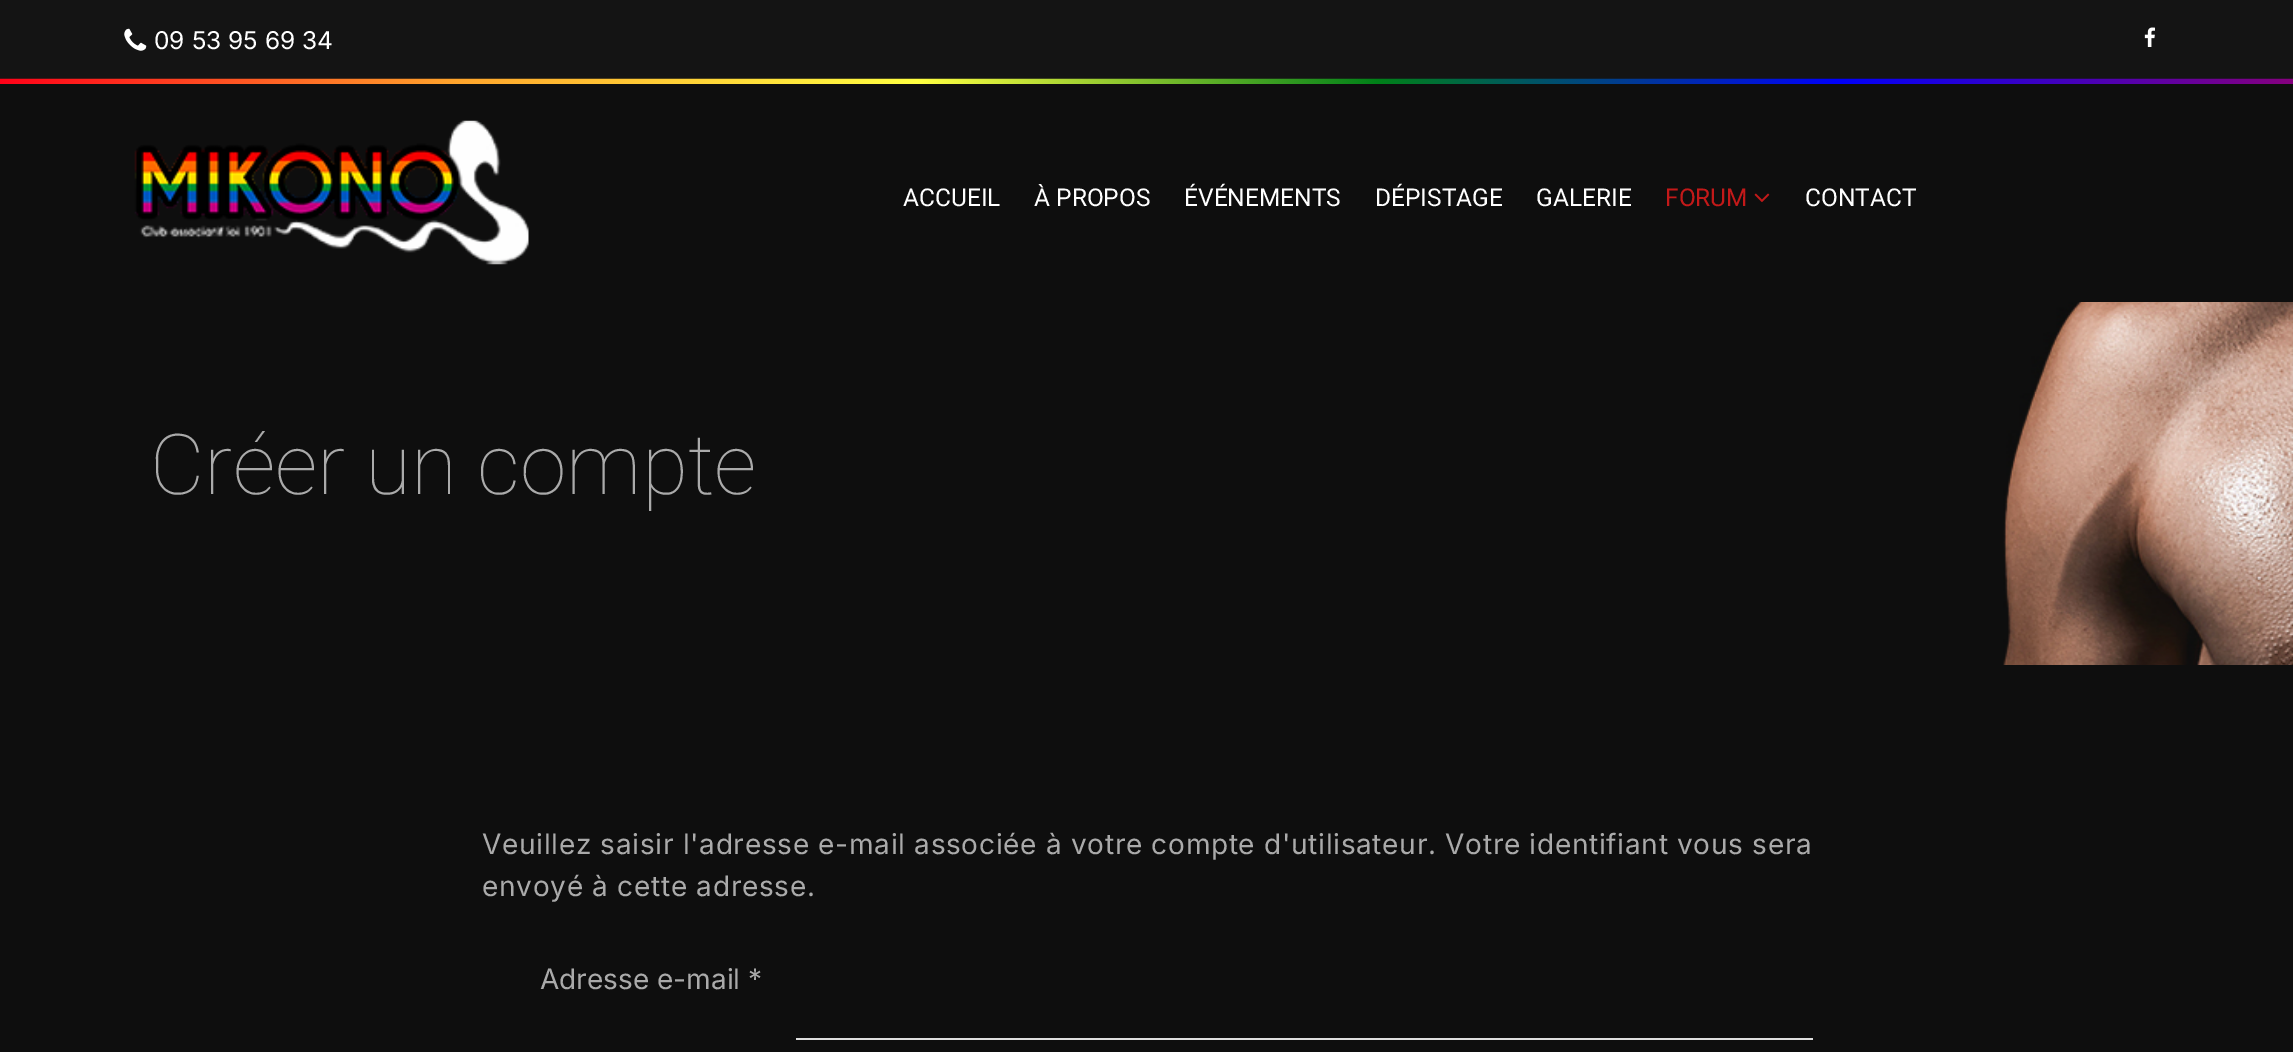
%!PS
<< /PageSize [2293 1052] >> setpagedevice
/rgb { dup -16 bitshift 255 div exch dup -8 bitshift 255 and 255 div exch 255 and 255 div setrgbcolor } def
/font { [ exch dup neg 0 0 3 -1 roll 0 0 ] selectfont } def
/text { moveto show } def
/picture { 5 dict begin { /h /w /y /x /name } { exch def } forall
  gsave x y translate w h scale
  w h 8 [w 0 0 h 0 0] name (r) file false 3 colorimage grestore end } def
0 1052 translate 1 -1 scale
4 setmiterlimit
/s1 { /Inter-Regular 24.5 font 16#FFFFFF rgb } def
/s2 { /Roboto-Regular 24.5 font 16#FFFFFF rgb } def
/s3 { /Roboto-Regular 24.5 font 16#C31919 rgb } def
/s4 { /Roboto-Thin 84 font 16#AAAAAA rgb } def
/s5 { /Inter-Regular 28 font 16#AAAAAA rgb } def
16#0E0E0E rgb
0 0 2293 1052 rectfill
16#141414 rgb
0 0 2293 79 rectfill
(pic1.raw) 0 78 2293 6 picture
(pic2.raw) 124 28 23 23 picture
s1
(09 53 95 69 34) 154 49 text
(pic3.raw) 2144 27 11 20 picture
(pic4.raw) 134 120 395 145 picture
s2
(ACCUEIL) 903 206 text
(À PROPOS) 1034 206 text
(ÉVÉNEMENTS) 1184 206 text
(DÉPISTAGE) 1375 206 text
(GALERIE) 1536 206 text
s3
(FORUM) 1665 206 text
(pic5.raw) 1754 193 16 9 picture
s2
(CONTACT) 1805 206 text
(pic6.raw) 2003 302 290 363 picture
s4
(Créer un compte) 150 494 text
/Inter-Regular 28 font
482 854 moveto 0.7 0 (Veuillez saisir l'adresse e-mail associée à votre compte d'utilisateur. Votre identifiant vous sera) ashow
482 896 moveto 0.7 0 (envoyé à cette adresse.) ashow
(Adresse e-mail *) 540 989 text
16#DEDEDE rgb
796 1038 1017 2 rectfill
showpage
